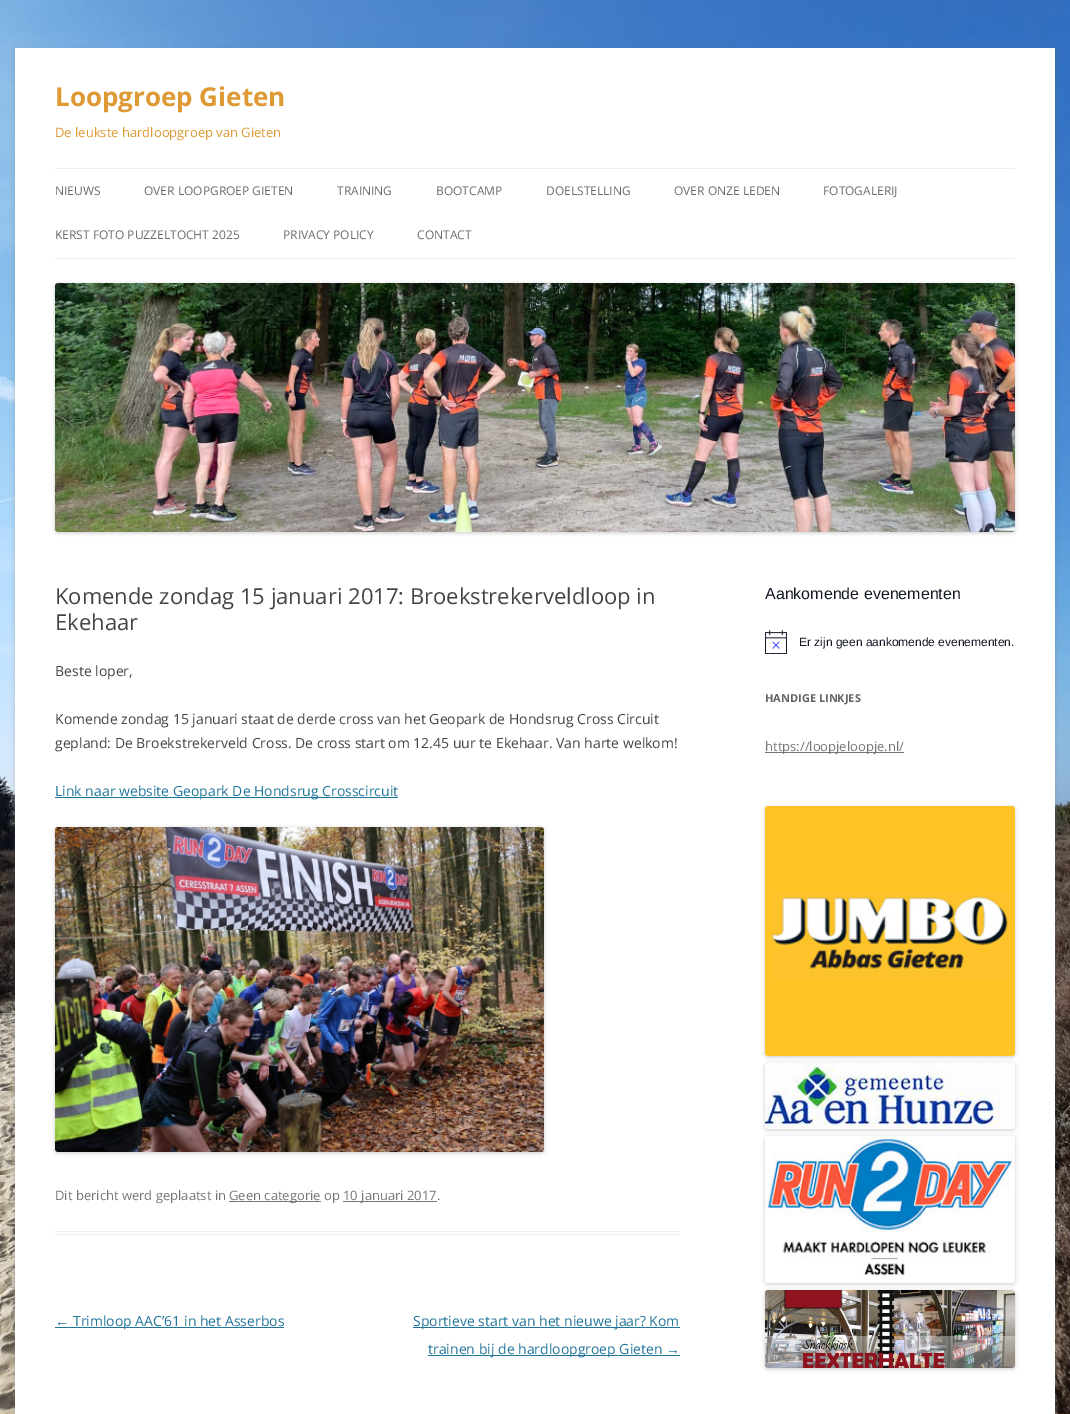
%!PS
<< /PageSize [1070 1414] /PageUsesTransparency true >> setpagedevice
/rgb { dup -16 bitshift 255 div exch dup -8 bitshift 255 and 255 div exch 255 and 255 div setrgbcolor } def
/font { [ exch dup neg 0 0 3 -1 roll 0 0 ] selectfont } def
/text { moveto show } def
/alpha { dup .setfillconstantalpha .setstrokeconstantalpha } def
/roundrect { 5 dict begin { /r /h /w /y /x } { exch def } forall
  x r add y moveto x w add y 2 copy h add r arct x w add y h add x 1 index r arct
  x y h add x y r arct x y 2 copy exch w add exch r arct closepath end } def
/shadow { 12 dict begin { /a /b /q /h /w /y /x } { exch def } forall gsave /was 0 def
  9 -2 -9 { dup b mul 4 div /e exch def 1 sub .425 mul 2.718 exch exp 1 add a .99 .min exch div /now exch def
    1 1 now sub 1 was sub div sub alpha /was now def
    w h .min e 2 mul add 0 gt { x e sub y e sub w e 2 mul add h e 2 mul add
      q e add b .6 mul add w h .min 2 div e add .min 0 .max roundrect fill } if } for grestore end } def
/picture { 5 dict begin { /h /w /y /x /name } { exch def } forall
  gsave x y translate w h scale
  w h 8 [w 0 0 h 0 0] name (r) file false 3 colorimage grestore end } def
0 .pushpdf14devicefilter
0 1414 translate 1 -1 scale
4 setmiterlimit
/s1 { /OpenSans-Bold 26 font 16#DD9933 rgb } def
/s2 { /OpenSans-Regular 13 font 16#DD9933 rgb } def
/s3 { /OpenSans-Regular 12 font 16#6A6A6A rgb } def
/s4 { /OpenSans-Regular 22 font 16#444444 rgb } def
/s5 { /OpenSans-Regular 14 font 16#444444 rgb } def
/s6 { /OpenSans-Regular 14 font 16#21759B rgb } def
/s7 { /OpenSans-Regular 13 font 16#757575 rgb } def
/s8 { /LiberationSans-Regular 14 font 16#21759B rgb } def
/s9 { /LiberationSans-Regular 16 font 16#141827 rgb } def
/s10 { /LiberationSans-Regular 12 font 16#141827 rgb } def
/s11 { /OpenSans-Bold 11 font 16#636363 rgb } def
16#FFFFFF rgb
0 0 1070 1414 rectfill
(pic1.raw) 0 0 1070 1414 picture
16#646464 rgb
15 50 1040 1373 0 3 0.3 shadow
16#FFFFFF rgb
15 48 1040 1366 rectfill
s1
(Loopgroep Gieten) 55 106 text
s2
(De leukste hardloopgroep van Gieten) 55 137 text
16#EDEDED rgb
55 168 960 1 rectfill
55 258 960 1 rectfill
s3
(NIEUWS) 55 195 text
(OVER LOOPGROEP GIETEN) 144 195 text
(TRAINING) 337 195 text
(BOOTCAMP) 436 195 text
(DOELSTELLING) 546 195 text
(OVER ONZE LEDEN) 674 195 text
(FOTOGALERIJ) 823 195 text
(KERST FOTO PUZZELTOCHT 2025) 55 239 text
(PRIVACY POLICY) 283 239 text
(CONTACT) 417 239 text
16#000000 rgb
55 284 960 249 3 2 0.2 shadow
(pic2.raw) 55 283 960 249 picture
16#EDEDED rgb
55 1231 625 1 rectfill
55 1234 625 1 rectfill
s4
(Komende zondag 15 januari 2017: Broekstrekerveldloop in) 55 604 text
(Ekehaar) 55 630 text
s5
(Beste loper,) 55 676 text
(Komende zondag 15 januari staat de derde cross van het Geopark de Hondsrug Cross Circuit) 55 724 text
(gepland: De Broekstrekerveld Cross. De cross start om 12.45 uur te Ekehaar. Van harte welkom!) 55 748 text
16#21759B rgb
55 797 343 1 rectfill
(Link naar website Geopark De Hondsrug Crosscircuit) 55 796 text
16#000000 rgb
55 828 489 325 3 2 0.2 shadow
(pic3.raw) 55 827 489 325 picture
s7
(Dit bericht werd geplaatst in) 55 1200 text
229 1201 92 1 rectfill
(Geen categorie op) 229 1200 text
343 1201 94 1 rectfill
(10 januari 2017.) 343 1200 text
s8
(←) 55 1326 text
55 1327 229 1 rectfill
s6
(Trimloop AAC’61 in het Asserbos) 73 1326 text
413 1327 267 1 rectfill
(Sportieve start van het nieuwe jaar? Kom) 413 1326 text
428 1355 252 1 rectfill
(trainen bij de hardloopgroep Gieten) 428 1354 text
s8
(→) 666 1354 text
s9
(Aankomende evenementen) 765 599 text
(pic4.raw) 765 630 22 24 picture
s10
(Er zijn geen aankomende evenementen.) 799 646 text
s11
(HANDIGE LINKJES) 765 702 text
16#757575 rgb
765 752 139 1 rectfill
s7
(https://loopjeloopje.nl/) 765 751 text
16#000000 rgb
765 807 250 250 3 2 0.2 shadow
(pic5.raw) 765 806 250 250 picture
765 1064 250 66 3 2 0.2 shadow
(pic6.raw) 765 1063 250 66 picture
765 1137 250 147 3 2 0.2 shadow
(pic7.raw) 765 1136 250 147 picture
765 1291 250 78 3 2 0.2 shadow
(pic8.raw) 765 1290 250 78 picture
.poppdf14devicefilter showpage
